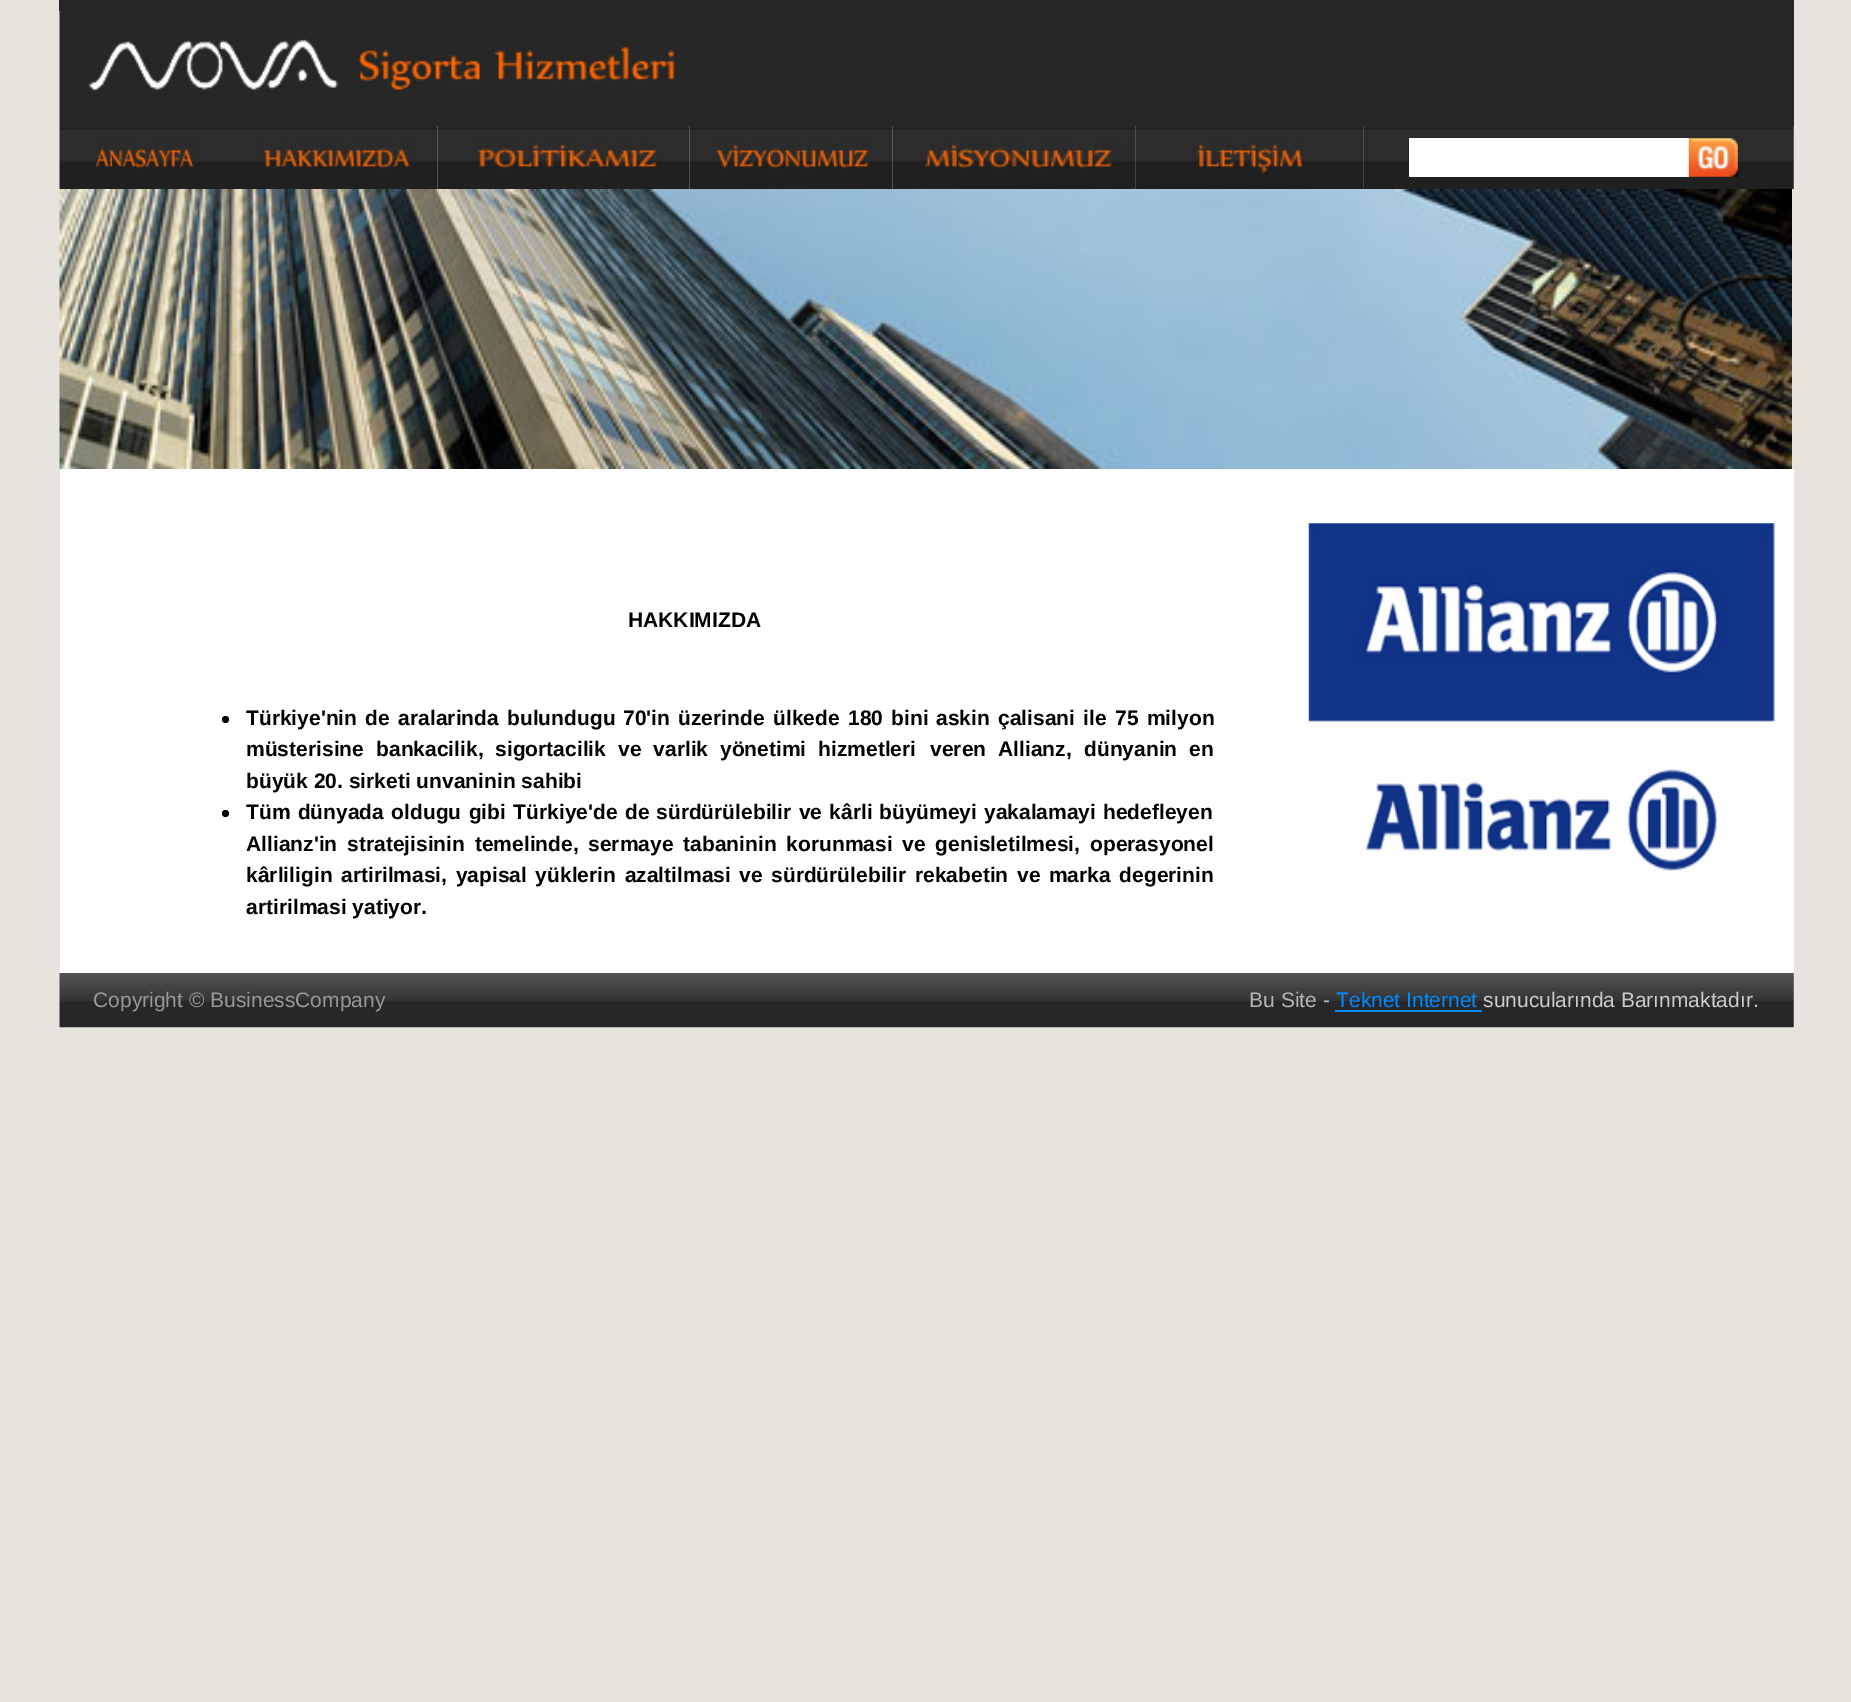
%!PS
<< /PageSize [1851 1702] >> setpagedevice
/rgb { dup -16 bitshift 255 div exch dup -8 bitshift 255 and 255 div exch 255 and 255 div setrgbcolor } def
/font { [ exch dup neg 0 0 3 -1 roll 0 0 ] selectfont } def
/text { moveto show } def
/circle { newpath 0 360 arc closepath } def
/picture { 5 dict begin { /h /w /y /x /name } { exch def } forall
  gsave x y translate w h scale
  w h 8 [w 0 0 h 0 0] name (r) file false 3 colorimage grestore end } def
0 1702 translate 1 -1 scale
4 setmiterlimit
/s1 { /LiberationSans-Bold 21 font 16#000000 rgb } def
/s2 { /LiberationSans-Regular 21 font 16#999999 rgb } def
/s3 { /LiberationSans-Regular 21 font 16#B7B7B7 rgb } def
/s4 { /LiberationSans-Regular 21 font 16#008AFF rgb } def
/s5 { /LiberationSans-Regular 21 font 16#CCCCCC rgb } def
16#E7E4DE rgb
0 0 1851 1702 rectfill
16#272727 rgb
59 0 1735 11 rectfill
(pic1.raw) 59 11 793 115 picture
852 11 942 115 rectfill
(pic2.raw) 59 126 172 63 picture
(pic3.raw) 231 126 207 63 picture
(pic4.raw) 437 126 253 63 picture
(pic5.raw) 689 126 204 63 picture
(pic6.raw) 892 126 244 63 picture
(pic8.raw) 1363 126 431 63 picture
(pic7.raw) 1135 126 229 63 picture
16#FFFFFF rgb
1409 138 280 39 rectfill
(pic9.raw) 1688 138 50 39 picture
(pic10.raw) 59 189 1733 280 picture
60 469 1734 504 rectfill
s1
(HAKKIMIZDA) 628 627 text
225.5 719.5 3.5 circle fill
246 725 moveto 2.5 0 32 (Türkiye'nin de aralarinda bulundugu) widthshow
(70'in) 623 725 text
(üzerinde) 678 725 text
773 725 moveto 2.5 0 32 (ülkede 180 bini) widthshow
936 725 moveto 2.5 0 32 (askin çalisani ile 75 milyon) widthshow
(müsterisine) 246 756 text
(bankacilik,) 376 756 text
(sigortacilik) 495 756 text
618 756 moveto 6 0 32 (ve varlik yönetimi hizmetleri) widthshow
930 756 moveto 6 0 32 (veren Allianz,) widthshow
1084 756 moveto 6 0 32 (dünyanin en) widthshow
(büyük 20. sirketi unvaninin sahibi) 246 788 text
225.5 813.5 3.5 circle fill
246 819 moveto 1.5 0 32 (Tüm dünyada oldugu gibi Türkiye'de de) widthshow
656 819 moveto 1.5 0 32 (sürdürülebilir ve kârli) widthshow
879 819 moveto 1 0 32 (büyümeyi yakalamayi hedefleyen) widthshow
(Allianz'in) 246 851 text
347 851 moveto 4 0 32 (stratejisinin temelinde,) widthshow
588 851 moveto 4 0 32 (sermaye tabaninin korunmasi ve genisletilmesi,) widthshow
(operasyonel) 1090 851 text
246 882 moveto 2.75 0 32 (kârliligin artirilmasi, yapisal yüklerin azaltilmasi ve) widthshow
771 882 moveto 2.75 0 32 (sürdürülebilir rekabetin ve marka degerinin) widthshow
(artirilmasi yatiyor.) 246 914 text
(pic11.raw) 1308 523 467 350 picture
(pic12.raw) 59 973 1735 55 picture
s2
(Copyright © BusinessCompany) 93 1007 text
s3
(Bu Site -) 1249 1007 text
s4
(Teknet Internet) 1336 1007 text
1335 1010 147 2 rectfill
s5
(sunucularında Barınmaktadır.) 1483 1007 text
showpage
